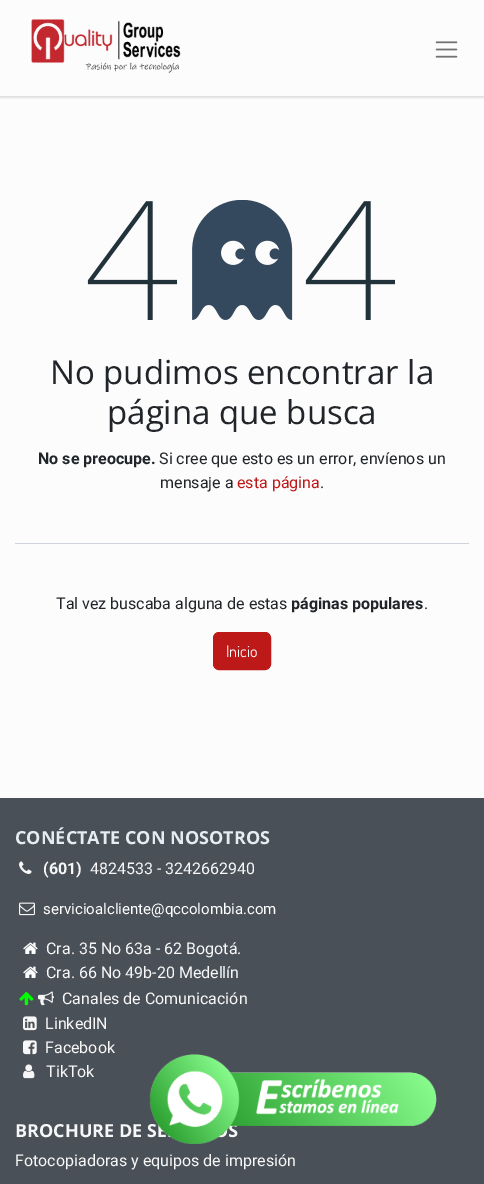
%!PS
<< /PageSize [484 1184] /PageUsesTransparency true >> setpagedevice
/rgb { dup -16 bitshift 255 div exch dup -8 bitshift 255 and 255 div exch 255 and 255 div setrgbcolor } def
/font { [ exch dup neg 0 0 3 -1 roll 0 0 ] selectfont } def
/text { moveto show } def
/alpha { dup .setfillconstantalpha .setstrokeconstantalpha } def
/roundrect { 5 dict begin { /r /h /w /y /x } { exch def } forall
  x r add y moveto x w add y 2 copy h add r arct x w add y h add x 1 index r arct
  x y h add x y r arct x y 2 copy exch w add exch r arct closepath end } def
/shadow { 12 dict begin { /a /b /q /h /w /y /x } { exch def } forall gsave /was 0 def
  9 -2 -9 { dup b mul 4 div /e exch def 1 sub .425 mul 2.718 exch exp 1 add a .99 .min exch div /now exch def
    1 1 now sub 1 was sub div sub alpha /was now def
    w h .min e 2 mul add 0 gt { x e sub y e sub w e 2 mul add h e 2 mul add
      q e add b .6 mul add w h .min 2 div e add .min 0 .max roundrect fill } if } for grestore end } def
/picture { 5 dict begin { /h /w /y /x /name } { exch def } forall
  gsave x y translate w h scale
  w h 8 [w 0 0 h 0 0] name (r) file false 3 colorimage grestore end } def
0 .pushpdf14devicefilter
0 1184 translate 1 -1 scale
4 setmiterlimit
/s1 { /OpenSans-Regular 33 font 16#212529 rgb } def
/s2 { /Heebo-Bold 16 font 16#212529 rgb } def
/s3 { /Heebo-Regular 16 font 16#212529 rgb } def
/s4 { /Heebo-Regular 16 font 16#BE1919 rgb } def
/s5 { /Dosis-Regular 16 font 16#FFFFFF rgb } def
/s6 { /OpenSans-Bold 18 font 16#E5EDF2 rgb } def
/s7 { /Heebo-Bold 16 font 16#F7F7F7 rgb } def
/s8 { /Heebo-Regular 16 font 16#F7F7F7 rgb } def
/s9 { /Heebo-Regular 15 font 16#FFFFFF rgb } def
/s10 { /Heebo-Regular 16 font 16#FFFFFF rgb } def
/s11 { /OpenSans-Bold 18 font 16#F7F7F7 rgb } def
16#FCFCFC rgb
0 0 484 1184 rectfill
gsave
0 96 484 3 rectclip
16#000000 rgb
0 0 484 96 0 2.5 0.25 shadow
grestore
(pic1.raw) 31 19 150 54 picture
(pic2.raw) 435 41 23 17 picture
(pic3.raw) 87 200 308 120 picture
s1
(No pudimos encontrar la) 50 384 text
(página que busca) 107 424 text
s2
(No se preocupe.) 38 464 text
s3
(Si cree que esto es un error, envíenos un) 159 464 text
(mensaje a) 160 488 text
s4
(esta página) 237 488 text
s3
(.) 320 488 text
16#CED4DA rgb
15 543 454 1 rectfill
s3
(Tal vez buscaba alguna de estas) 56 609 text
s2
(páginas populares) 291 609 text
s3
(.) 424 609 text
16#BE1919 rgb
213.5 632.5 57 37 5.5 roundrect gsave fill grestore
stroke
s5
(Inicio) 226 657 text
16#495057 rgb
0 798 484 386 rectfill
s6
(CONÉCTATE CON NOSOTROS) 15 844 text
(pic4.raw) 19 861 13 13 picture
s7
(\(601\)) 43 874 text
s8
(4824533 - 3242662940) 90 874 text
(pic5.raw) 19 902 16 14 picture
s9
(servicioalcliente@qccolombia.com) 43 914 text
(pic6.raw) 23 942 15 12 picture
s8
(Cra. 35 No 63a - 62 Bogotá) 46 954 text
s10
(.) 237 954 text
(pic6.raw) 23 966 15 12 picture
s8
(Cra. 66 No 49b-20 Medellín) 46 978 text
(pic7.raw) 19 992 15 14 picture
(pic8.raw) 38 991 16 15 picture
(Canales de Comunicación) 62 1004 text
(pic9.raw) 23 1016 14 15 picture
(LinkedIN) 45 1029 text
(pic10.raw) 23 1040 14 15 picture
(Facebook) 45 1053 text
(pic11.raw) 23 1064 12 15 picture
(TikTok) 46 1077 text
s11
(BROCHURE DE S) 15 1137 text
s8
(Fotocopiadoras y equipos de impresión) 15 1166 text
(pic12.raw) 149 1054 288 90 picture
.poppdf14devicefilter showpage
